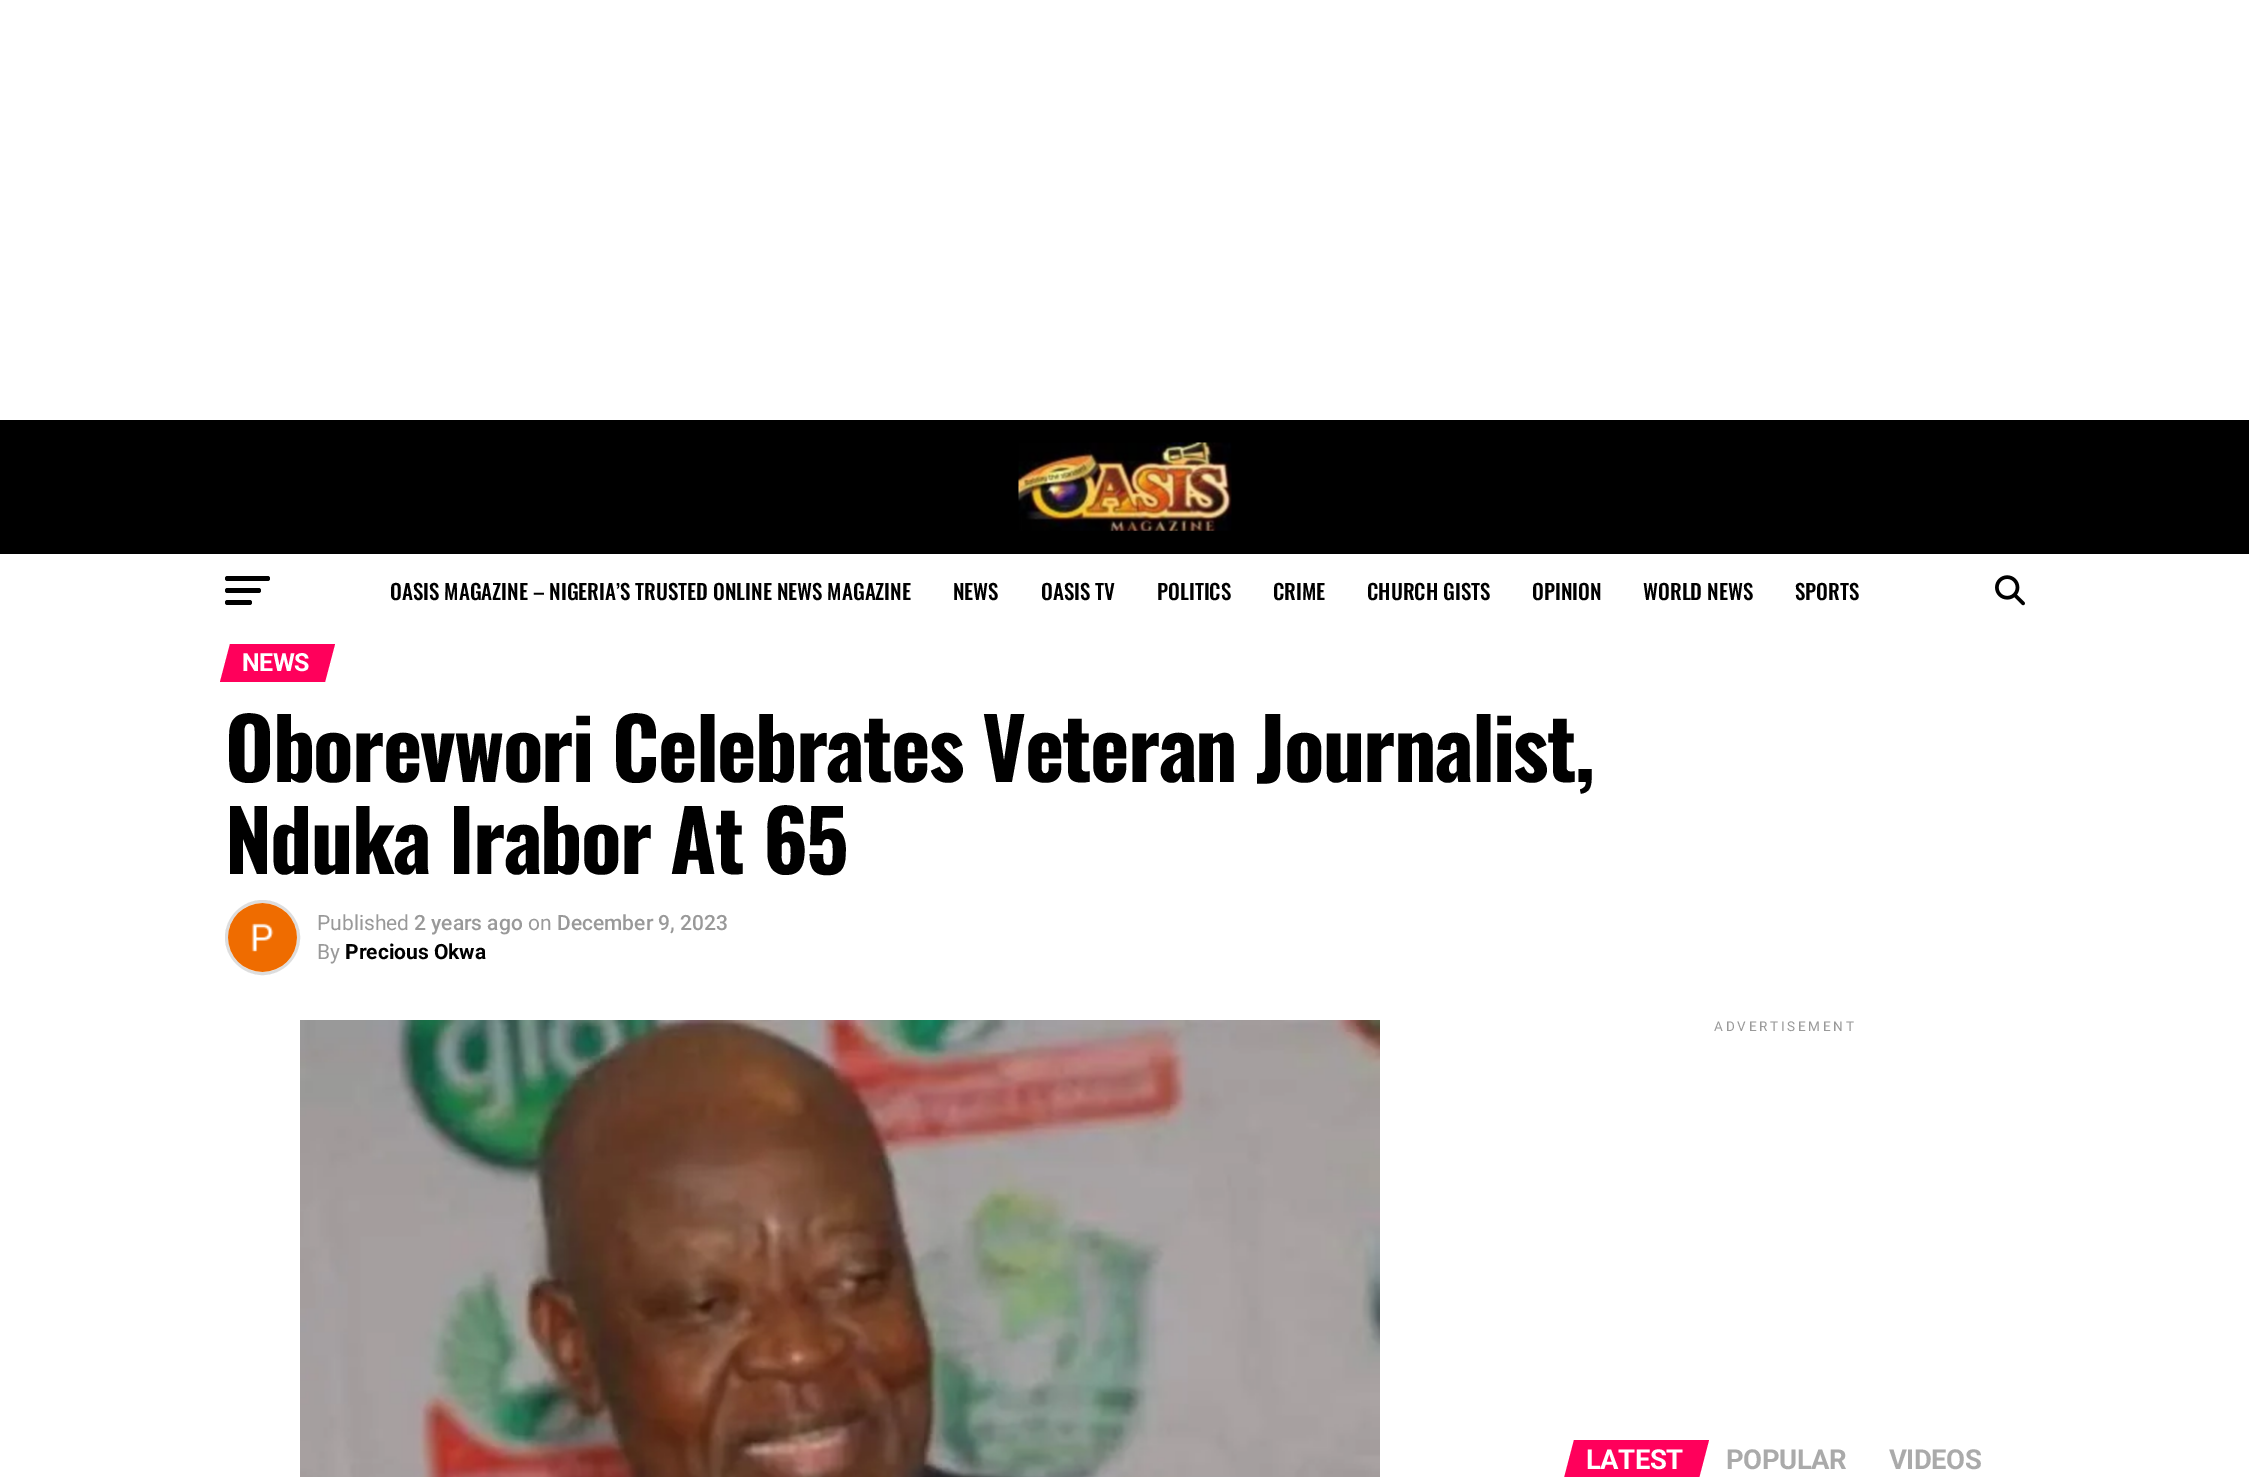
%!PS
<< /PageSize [2249 1477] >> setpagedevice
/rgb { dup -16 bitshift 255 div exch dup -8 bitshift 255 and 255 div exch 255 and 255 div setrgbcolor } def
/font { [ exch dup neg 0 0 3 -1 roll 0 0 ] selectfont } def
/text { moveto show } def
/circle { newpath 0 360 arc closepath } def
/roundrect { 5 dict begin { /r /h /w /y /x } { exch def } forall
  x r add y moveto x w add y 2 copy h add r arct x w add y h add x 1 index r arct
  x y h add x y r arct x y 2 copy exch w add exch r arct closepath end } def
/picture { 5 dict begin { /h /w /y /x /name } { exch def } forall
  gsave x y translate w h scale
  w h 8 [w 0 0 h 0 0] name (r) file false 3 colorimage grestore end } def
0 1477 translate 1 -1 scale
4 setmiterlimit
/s1 { /Oswald-Medium 21 font 16#000000 rgb } def
/s2 { /Roboto-Regular 21 font 16#999999 rgb } def
/s3 { /Roboto-Medium 21 font 16#999999 rgb } def
/s4 { /Roboto-Bold 21 font 16#000000 rgb } def
16#FFFFFF rgb
0 0 2249 1477 rectfill
16#000000 rgb
0 420 2249 134 rectfill
(pic1.raw) 1018 442 214 89 picture
225 576 45 5 2.5 roundrect fill
225 588 36 5 2.5 roundrect fill
225 600 27 5 2.5 roundrect fill
s1
(OASIS MAGAZINE – NIGERIA’S TRUSTED ONLINE NEWS MAGAZINE) 390 600 text
(NEWS) 953 600 text
(OASIS TV) 1041 600 text
(POLITICS) 1157 600 text
(CRIME) 1273 600 text
(CHURCH GISTS) 1367 600 text
(OPINION) 1532 600 text
(WORLD NEWS) 1643 600 text
(SPORTS) 1795 600 text
(pic2.raw) 1995 575 30 31 picture
16#FF005B rgb
230 644 moveto 335 644 lineto 325 682 lineto 220 682 lineto closepath fill
/Roboto-Bold 25 font
16#FFFFFF rgb
242 671 moveto -0.5 0 (NEWS) ashow
/Oswald-Bold 84 font
16#000000 rgb
225 782 moveto -1.7 0 (Oborevwori Celebrates Veteran Journalist,) ashow
225 874 moveto -1.7 0 (Nduka Irabor At 65) ashow
16#DDDDDD rgb
3 setlinewidth
262.5 937.5 36 circle stroke
(pic3.raw) 228 903 69 69 picture
s2
(Published) 317 930 text
s3
(2 years ago) 414 930 text
s2
(on) 528 930 text
s3
(December 9, 2023) 557 930 text
s2
(By) 317 959 text
s4
(Precious Okwa) 345 959 text
(pic4.raw) 300 1020 1080 457 picture
/Roboto-Regular 13.5 font
16#999999 rgb
1714 1031 moveto 2.75 0 (ADVERTISEMENT) ashow
16#FF005B rgb
1574 1440 moveto 1709 1440 lineto 1698 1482 lineto 1563 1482 lineto closepath fill
/Roboto-Bold 27.5 font
16#FFFFFF rgb
1586 1469 moveto -0.5 0 (LATEST) ashow
16#AAAAAA rgb
1726 1469 moveto -0.5 0 (POPULAR) ashow
1889 1469 moveto -0.5 0 (VIDEOS) ashow
showpage
